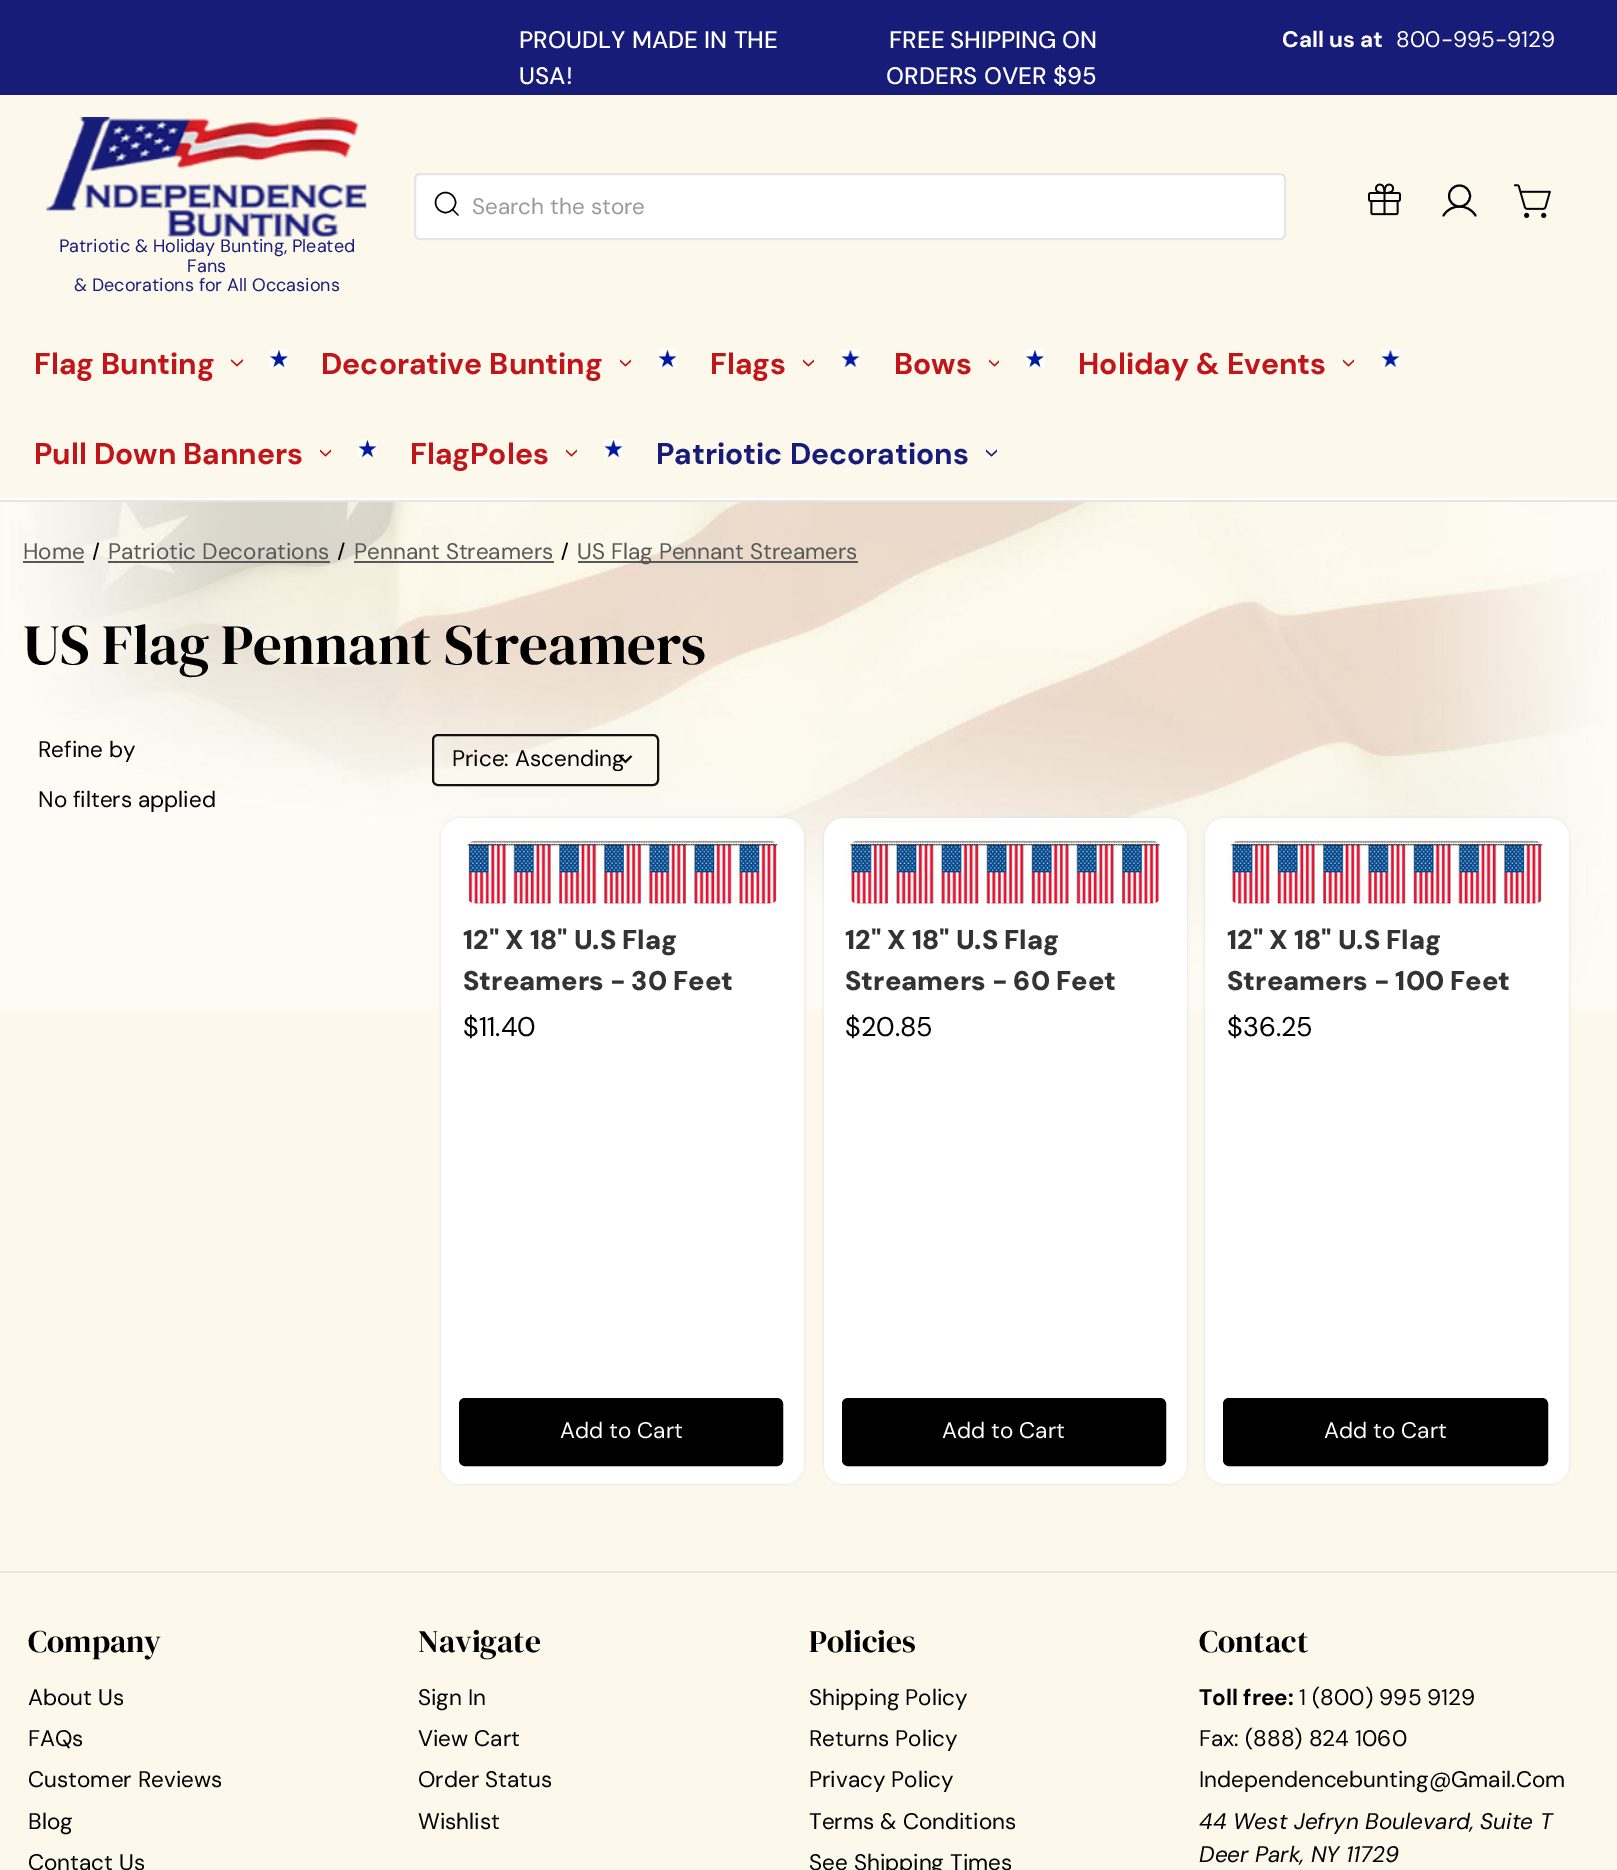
%!PS
<< /PageSize [1617 1870] /PageUsesTransparency true >> setpagedevice
/rgb { dup -16 bitshift 255 div exch dup -8 bitshift 255 and 255 div exch 255 and 255 div setrgbcolor } def
/font { [ exch dup neg 0 0 3 -1 roll 0 0 ] selectfont } def
/text { moveto show } def
/alpha { dup .setfillconstantalpha .setstrokeconstantalpha } def
/circle { newpath 0 360 arc closepath } def
/roundrect { 5 dict begin { /r /h /w /y /x } { exch def } forall
  x r add y moveto x w add y 2 copy h add r arct x w add y h add x 1 index r arct
  x y h add x y r arct x y 2 copy exch w add exch r arct closepath end } def
/shadow { 12 dict begin { /a /b /q /h /w /y /x } { exch def } forall gsave /was 0 def
  9 -2 -9 { dup b mul 4 div /e exch def 1 sub .425 mul 2.718 exch exp 1 add a .99 .min exch div /now exch def
    1 1 now sub 1 was sub div sub alpha /was now def
    w h .min e 2 mul add 0 gt { x e sub y e sub w e 2 mul add h e 2 mul add
      q e add b .6 mul add w h .min 2 div e add .min 0 .max roundrect fill } if } for grestore end } def
/picture { 5 dict begin { /h /w /y /x /name } { exch def } forall
  gsave x y translate w h scale
  w h 8 [w 0 0 h 0 0] name (r) file false 3 colorimage grestore end } def
0 .pushpdf14devicefilter
0 1870 translate 1 -1 scale
4 setmiterlimit
/s1 { /DMSans-Medium 24 font 16#FFFFFF rgb } def
/s2 { /DMSans-Bold 22.5 font 16#FFFFFF rgb } def
/s3 { /DMSans-Regular 22.5 font 16#FFFFFF rgb } def
/s4 { /DMSans-Regular 22.5 font 16#999999 rgb } def
/s5 { /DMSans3-Regular 18 font 16#171C78 rgb } def
/s6 { /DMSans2-Bold 30 font 16#C2151A rgb } def
/s7 { /DMSans2-Bold 30 font 16#171C78 rgb } def
/s8 { /DMSans-Regular 22.5 font 16#585858 rgb } def
/s9 { /DMSerifDisplay-Regular 57 font 16#000000 rgb } def
/s10 { /DMSans-Regular 22.5 font 16#000000 rgb } def
/s11 { /DMSans-Black 27 font 16#333333 rgb } def
/s12 { /DMSans2-Regular 27 font 16#000000 rgb } def
/s13 { /DMSerifDisplay-Regular 31.5 font 16#000000 rgb } def
/s14 { /DMSans-Bold 22.5 font 16#000000 rgb } def
/s15 { /DMSans-Italic 22.5 font 16#000000 rgb } def
16#FCF8EC rgb
0 0 1617 1870 rectfill
(pic1.raw) 0 502 1617 508 picture
16#171C78 rgb
0 0 1617 95 rectfill
s1
(PROUDLY MADE IN THE) 519 48 text
(USA!) 519 84 text
889 48 moveto -1 0 32 (FREE SHIPPING ON) widthshow
(ORDERS OVER $95) 886 84 text
s2
(Call us at) 1282 47 text
s3
(800-995-9129) 1396 47 text
415 174 870 65 5 roundrect gsave fill grestore
16#E5E5E5 rgb
2 setlinewidth
stroke
16#000000 rgb
1.4 setlinewidth
445.5 202.5 10 circle stroke
1 setlinecap
1 setlinejoin
452.5 209.5 moveto 458 215 lineto stroke
s4
(Search the store) 472 214 text
(pic2.raw) 1368 183 33 33 picture
16#000000 rgb
2 setlinewidth
0 setlinecap
0 setlinejoin
1459.5 196 10.5 circle stroke
1 setlinecap
1 setlinejoin
1443.5 215.5 moveto 1450.5 203.5 1468.5 203.5 1475.5 215.5 curveto stroke
(pic3.raw) 1514 184 37 34 picture
(pic4.raw) 46 117 321 120 picture
s5
(Patriotic & Holiday Bunting, Pleated) 59 252 text
(Fans) 187 272 text
(& Decorations for All Occasions) 74 291 text
16#E5E5E5 rgb
0 500 1617 2 rectfill
16#FFFFFF rgb
0 498 1617 2 rectfill
(pic5.raw) 270 349 18 19 picture
s6
(Flag Bunting) 34 374 text
(pic6.raw) 231 359 12 8 picture
(pic7.raw) 658 349 19 19 picture
(Decorative Bunting) 321 374 text
(pic8.raw) 620 359 11 8 picture
(pic9.raw) 841 349 19 19 picture
(Flags) 710 374 text
(pic8.raw) 803 359 11 8 picture
(pic10.raw) 1026 349 18 19 picture
(Bows) 894 374 text
(pic11.raw) 989 359 10 8 picture
(pic12.raw) 1381 349 19 19 picture
(Holiday & Events) 1078 374 text
(pic8.raw) 1343 359 11 8 picture
(pic13.raw) 358 439 19 19 picture
(Pull Down Banners) 34 464 text
(pic8.raw) 320 449 11 8 picture
(pic14.raw) 604 439 19 19 picture
(FlagPoles) 410 464 text
(pic8.raw) 566 449 11 8 picture
s7
(Patriotic Decorations) 656 464 text
(pic15.raw) 986 449 11 8 picture
s8
(Home) 23 559 text
23 561 61 2 rectfill
16#000000 rgb
97.5 542.5 moveto 99 543 lineto 94.5 560 lineto 93 559.5 lineto closepath fill
s8
(Patriotic Decorations) 108 559 text
108 561 222 2 rectfill
16#000000 rgb
343 542.5 moveto 344.5 543 lineto 339.5 560 lineto 338 559.5 lineto closepath fill
s8
(Pennant Streamers) 354 559 text
354 561 200 2 rectfill
16#000000 rgb
566.5 542.5 moveto 568 543 lineto 563 560 lineto 561.5 559.5 lineto closepath fill
16#585858 rgb
578 561 280 2 rectfill
(US Flag Pennant Streamers) 577 559 text
s9
(US Flag Pennant Streamers) 23 664 text
s10
(Refine by) 38 757 text
(No filters applied) 38 807 text
16#111111 rgb
0 setlinecap
0 setlinejoin
433 735 225 50 5 roundrect stroke
(pic16.raw) 618 755 15 9 picture
gsave
453 749 186 22 rectclip
s10
(Price: Ascending) 452 766 text
grestore
16#DDDDDD rgb
441 818 363 666 20 1.5 1 shadow
16#FFFFFF rgb
441 818 363 666 20 roundrect fill
(pic17.raw) 465 840 315 64 picture
s11
(12" X 18" U.S Flag) 463 949 text
(Streamers - 30 Feet) 463 990 text
s12
($11.40) 463 1036 text
460 1399 322 66 5 roundrect gsave fill grestore
stroke
s3
(Add to Cart) 560 1438 text
16#DDDDDD rgb
824 818 363 666 20 1.5 1 shadow
16#FFFFFF rgb
824 818 363 666 20 roundrect fill
(pic18.raw) 846 840 315 64 picture
s11
(12" X 18" U.S Flag) 845 949 text
(Streamers - 60 Feet) 845 990 text
s12
($20.85) 845 1036 text
843 1399 322 66 5 roundrect gsave fill grestore
stroke
s3
(Add to Cart) 942 1438 text
16#DDDDDD rgb
1205 818 364 666 20 1.5 1 shadow
16#FFFFFF rgb
1205 818 364 666 20 roundrect fill
(pic19.raw) 1227 840 318 64 picture
s11
(12" X 18" U.S Flag) 1227 949 text
(Streamers - 100 Feet) 1227 990 text
s12
($36.25) 1227 1036 text
1224 1399 323 66 5 roundrect gsave fill grestore
stroke
s3
(Add to Cart) 1324 1438 text
16#E5E5E5 rgb
0 1571 1617 2 rectfill
s13
(Company) 28 1652 text
s10
(About Us) 28 1705 text
(FAQs) 28 1746 text
(Customer Reviews) 28 1787 text
(Blog) 28 1829 text
(Contact Us) 28 1870 text
s13
(Navigate) 418 1652 text
s10
(Sign In) 418 1705 text
(View Cart) 418 1746 text
(Order Status) 418 1787 text
(Wishlist) 418 1829 text
s13
(Policies) 809 1652 text
s10
(Shipping Policy) 809 1705 text
(Returns Policy) 809 1746 text
(Privacy Policy) 809 1787 text
(Terms & Conditions) 809 1829 text
(See Shipping Times) 809 1870 text
s13
(Contact) 1199 1652 text
s14
(Toll free:) 1199 1705 text
s10
(1 \(800\) 995 9129) 1299 1705 text
(Fax: \(888\) 824 1060) 1199 1746 text
(Independencebunting@Gmail.Com) 1199 1787 text
s15
(44 West Jefryn Boulevard, Suite T) 1199 1829 text
(Deer Park, NY 11729) 1199 1862 text
.poppdf14devicefilter showpage
